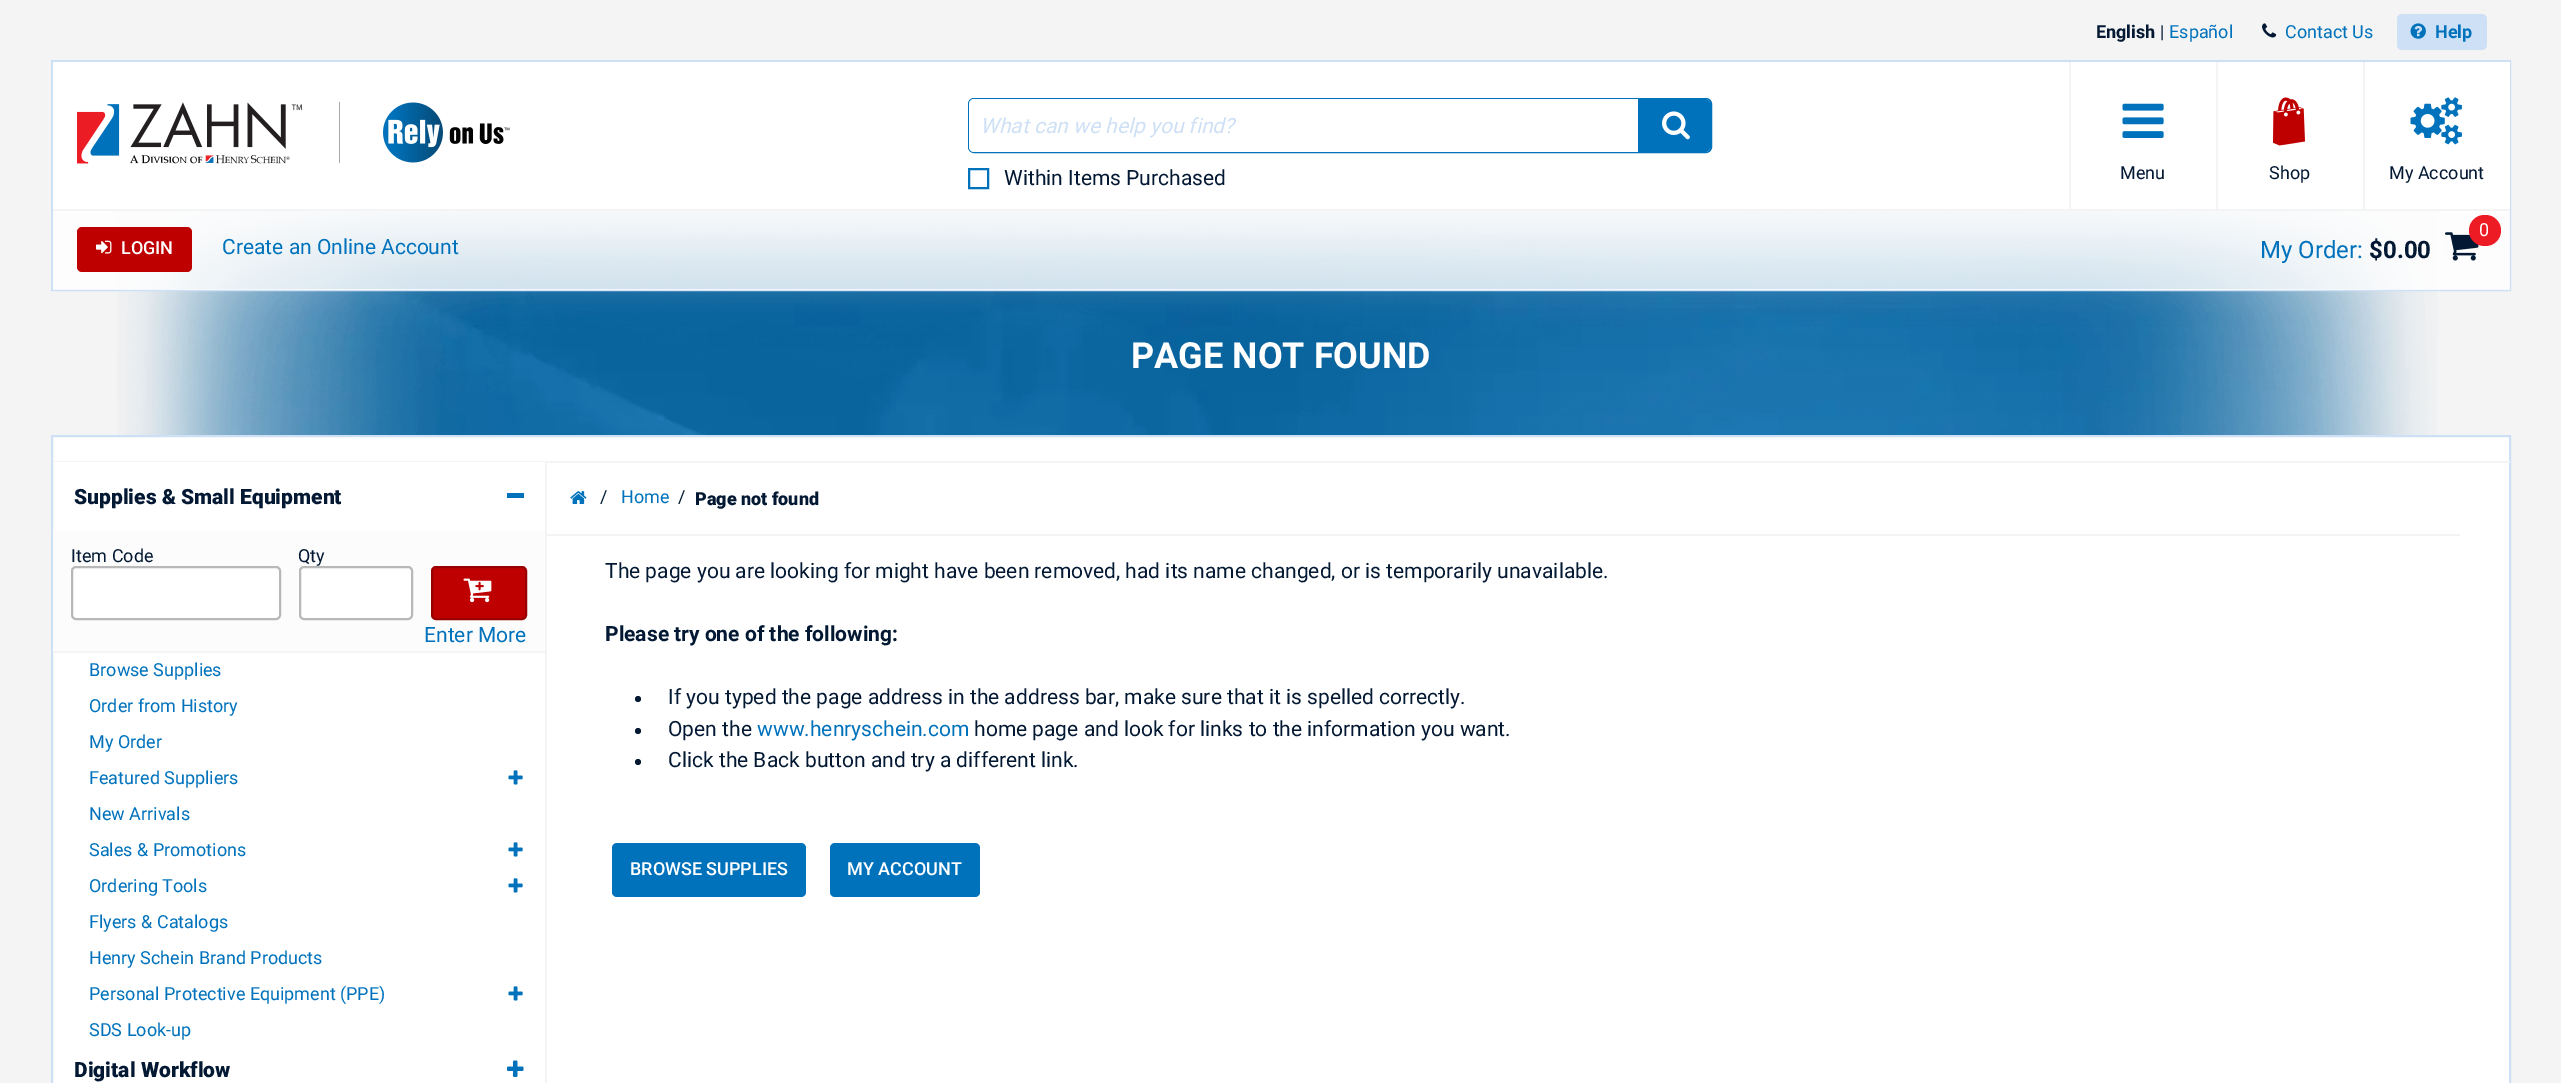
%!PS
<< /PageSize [2561 1083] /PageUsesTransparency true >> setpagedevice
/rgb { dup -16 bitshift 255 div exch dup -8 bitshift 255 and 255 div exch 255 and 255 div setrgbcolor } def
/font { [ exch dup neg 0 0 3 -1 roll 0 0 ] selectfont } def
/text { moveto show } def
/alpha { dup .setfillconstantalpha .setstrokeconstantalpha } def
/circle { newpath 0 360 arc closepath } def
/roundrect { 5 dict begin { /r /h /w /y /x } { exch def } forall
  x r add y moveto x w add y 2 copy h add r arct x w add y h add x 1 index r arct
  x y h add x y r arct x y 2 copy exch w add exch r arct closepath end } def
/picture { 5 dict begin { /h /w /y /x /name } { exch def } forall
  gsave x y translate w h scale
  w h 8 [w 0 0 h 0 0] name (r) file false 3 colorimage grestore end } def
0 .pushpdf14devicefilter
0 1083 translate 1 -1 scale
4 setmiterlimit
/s1 { /Roboto-Bold 18 font 16#031933 rgb } def
/s2 { /Roboto-Regular 18 font 16#031933 rgb } def
/s3 { /Roboto-Regular 18 font 16#0072BC rgb } def
/s4 { /Roboto-Bold 18 font 16#0072BC rgb } def
/s5 { /Roboto-Italic 21 font 16#CEE0F5 rgb } def
/s6 { /Roboto-Regular 21 font 16#031933 rgb } def
/s7 { /Roboto-Medium 18 font 16#FFFFFF rgb } def
/s8 { /Roboto-Regular 21 font 16#0072BC rgb } def
/s9 { /Roboto-Regular 18 font 16#FFFFFF rgb } def
/s10 { /Roboto-Regular 24 font 16#0072BC rgb } def
/s11 { /Roboto-Bold 24 font 16#031933 rgb } def
/s12 { /Roboto-Bold 36 font 16#FFFFFF rgb } def
/s13 { /Roboto-Black 21 font 16#031933 rgb } def
/s14 { /Roboto-Black 18 font 16#031933 rgb } def
/s15 { /Roboto-Bold 21 font 16#031933 rgb } def
16#F4F4F4 rgb
0 0 2561 1083 rectfill
s1
(English) 2096 38 text
s2
(|) 2160 38 text
s3
(Español) 2169 38 text
(pic1.raw) 2262 23 15 15 picture
(Contact Us) 2285 38 text
16#CEE0F5 rgb
2397 14 90 36 5 roundrect fill
(pic2.raw) 2410 23 16 16 picture
s4
(Help) 2435 38 text
(pic10.raw) 117 211 2320 224 picture
16#CEE0F5 rgb
2 setlinewidth
52 61 2458 229 rectstroke
16#FFFFFF rgb
53 62 2457 147 rectfill
(pic3.raw) 77 102 433 62 picture
16#0072BC rgb
969 99 742 53 5 roundrect stroke
16#FFFFFF rgb
969 99 741 53 5 roundrect fill
s5
(What can we help you find?) 980 133 text
16#0072BC rgb
1638 99 moveto 1705 99 lineto 1708 99 1710 101 1710 104 curveto 1710 147 lineto 1710 150 1708 152 1705 152 curveto 1638 152 lineto closepath fill
(pic4.raw) 1662 111 28 29 picture
969 169 19 19 rectstroke
s6
(Within Items Purchased) 1004 185 text
16#F4F4F4 rgb
2069 62 2 147 rectfill
(pic5.raw) 2122 103 42 35 picture
s2
(Menu) 2120 179 text
16#F4F4F4 rgb
2216 62 2 147 rectfill
(pic6.raw) 2273 97 32 49 picture
s2
(Shop) 2269 179 text
16#F4F4F4 rgb
2363 62 2 147 rectfill
(pic7.raw) 2410 97 52 48 picture
s2
(My Account) 2389 179 text
0.8 alpha
16#FFFFFF rgb
53 211 2457 79 rectfill
1 alpha
16#F4F4F4 rgb
2509 209 1 2 rectfill
16#BF0000 rgb
77 227 115 45 5 roundrect fill
(pic8.raw) 96 240 16 14 picture
s7
(LOGIN) 121 254 text
s8
(Create an Online Account) 222 254 text
(pic9.raw) 2445 232 34 29 picture
16#ED1C24 rgb
2469 215 32 31 15.5 roundrect fill
s9
(0) 2479 236 text
s10
(My Order:) 2260 258 text
s11
($0.00) 2369 258 text
s12
(PAGE NOT FOUND) 1131 368 text
52 436 moveto 2510 436 lineto 2510 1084 lineto 52 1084 lineto closepath gsave fill grestore
16#CEE0F5 rgb
stroke
16#F4F4F4 rgb
53 461 2457 2 rectfill
16#FFFFFF rgb
53 462 492 1 rectfill
s13
(Supplies & Small Equipment) 74 504 text
16#0072BC rgb
507 493 17 5 rectfill
16#F4F4F4 rgb
53 651 492 2 rectfill
16#FCFCFC rgb
53 530 492 121 rectfill
s2
(Item Code) 71 562 text
16#FFFFFF rgb
72 567 208 52 4 roundrect gsave fill grestore
16#B8B8B8 rgb
stroke
s2
(Qty) 298 562 text
16#FFFFFF rgb
300 567 112 52 4 roundrect gsave fill grestore
16#B8B8B8 rgb
stroke
16#BF0000 rgb
432 567 94 52 4 roundrect gsave fill grestore
16#990000 rgb
stroke
(pic11.raw) 463 578 29 25 picture
s8
(Enter More) 424 642 text
s3
(Browse Supplies) 89 676 text
(Order from History) 89 712 text
(My Order) 89 748 text
(Featured Suppliers) 89 784 text
(pic12.raw) 508 770 15 15 picture
(New Arrivals) 89 820 text
(Sales & Promotions) 89 856 text
(pic12.raw) 508 842 15 15 picture
(Ordering Tools) 89 892 text
(pic12.raw) 508 878 15 15 picture
(Flyers & Catalogs) 89 928 text
(Henry Schein Brand Products) 89 964 text
(Personal Protective Equipment \(PPE\)) 89 1000 text
(pic12.raw) 508 986 15 15 picture
(SDS Look-up) 89 1036 text
s13
(Digital Workflow) 74 1077 text
(pic13.raw) 507 1060 17 17 picture
16#F4F4F4 rgb
545 462 2 621 rectfill
546 534 1914 2 rectfill
(pic14.raw) 570 491 17 13 picture
s2
(/) 600 503 text
s3
(Home) 621 503 text
s2
(/) 678 503 text
s14
(Page not found) 695 505 text
s6
(The page you are looking for might have been removed, had its name changed, or is temporarily unavailable.) 605 578 text
s15
(Please try one of the following:) 605 641 text
638 699 3 circle fill
s6
(If you typed the page address in the address bar, make sure that it is spelled correctly.) 668 704 text
638 731 3 circle fill
(Open the) 668 736 text
s8
(www.henryschein.com) 757 736 text
s6
(home page and look for links to the information you want.) 974 736 text
638 762 3 circle fill
(Click the Back button and try a different link.) 668 767 text
16#0072BC rgb
612 843 194 54 5 roundrect fill
s7
(BROWSE SUPPLIES) 630 875 text
16#0072BC rgb
830 843 150 54 5 roundrect fill
s7
(MY ACCOUNT) 847 875 text
.poppdf14devicefilter showpage
